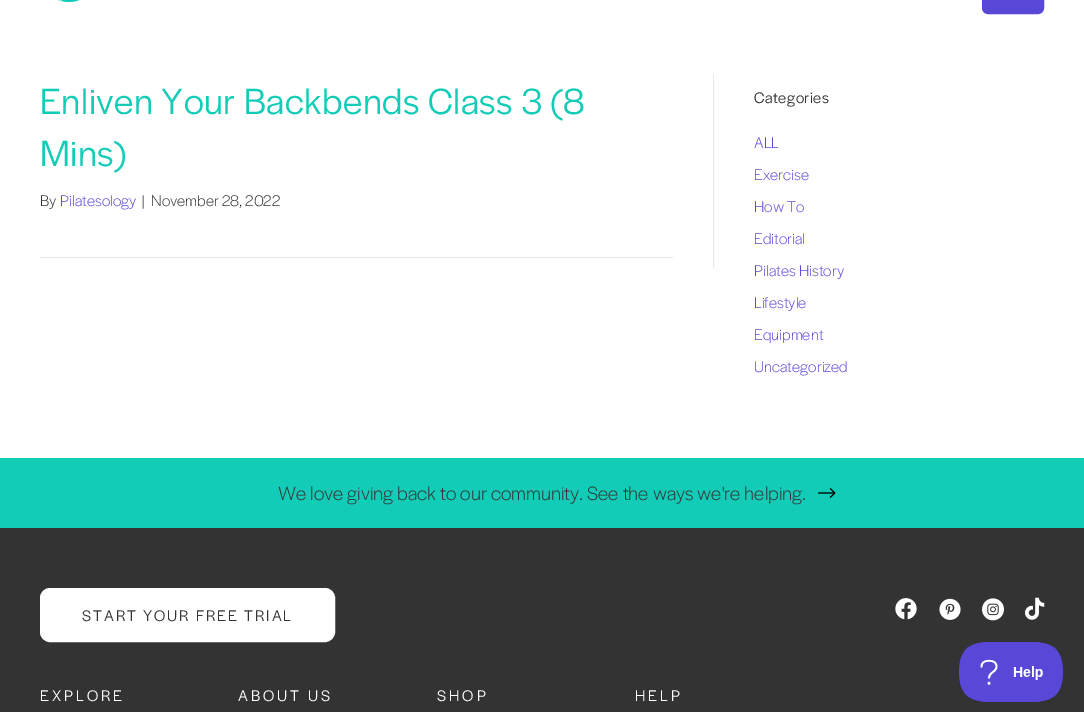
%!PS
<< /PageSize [1084 712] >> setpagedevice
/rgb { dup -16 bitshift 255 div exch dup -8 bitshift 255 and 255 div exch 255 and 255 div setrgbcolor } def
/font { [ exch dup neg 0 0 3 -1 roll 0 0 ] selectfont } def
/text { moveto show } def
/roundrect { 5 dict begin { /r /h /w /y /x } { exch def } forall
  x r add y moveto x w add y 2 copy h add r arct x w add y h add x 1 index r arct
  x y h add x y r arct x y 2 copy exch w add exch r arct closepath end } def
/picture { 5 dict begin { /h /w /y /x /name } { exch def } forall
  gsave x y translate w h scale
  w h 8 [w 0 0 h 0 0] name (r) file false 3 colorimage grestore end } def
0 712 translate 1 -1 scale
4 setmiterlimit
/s1 { /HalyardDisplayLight-Light 16 font 16#333333 rgb } def
/s2 { /HalyardDisplayLight-Light 16 font 16#5948D8 rgb } def
/s3 { /HalyardDisplayLight-Light 20 font 16#333333 rgb } def
16#FFFFFF rgb
0 0 1084 712 rectfill
(pic1.raw) 57 0 24 2 picture
16#5948D8 rgb
983 -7 60 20 5 roundrect gsave fill grestore
2 setlinewidth
stroke
16#E6E6E6 rgb
713 74 1 194 rectfill
/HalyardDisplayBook-Regular 38 font
16#13CCB7 rgb
40 114 moveto 0.5 0 (Enliven Your Backbends Class 3 \(8) ashow
40 166 moveto 0.5 0 (Mins\)) ashow
s1
(By) 40 206 text
s2
(Pilatesology) 60 206 text
s1
(|) 142 206 text
(November 28, 2022) 151 206 text
16#E6E6E6 rgb
40 257 633 1 rectfill
/HalyardDisplayBook-Regular 16 font
16#333333 rgb
754 103 moveto 0.5 0 (Categories) ashow
s2
(ALL) 754 148 text
(Exercise) 754 180 text
(How To) 754 212 text
(Editorial) 754 244 text
(Pilates History) 754 276 text
(Lifestyle) 754 308 text
(Equipment) 754 340 text
(Uncategorized) 754 372 text
16#13CCB7 rgb
0 458 1084 70 rectfill
s3
(We love giving back to our community. See the ways we're helping.) 278 500 text
(pic2.raw) 818 488 18 10 picture
0 528 1084 184 rectfill
16#FFFFFF rgb
41 589 293 52 9 roundrect gsave fill grestore
stroke
/HalyardDisplayBook-Regular 16 font
16#333333 rgb
82 621 moveto 2 0 (START YOUR FREE TRIAL) ashow
(pic3.raw) 895 598 22 22 picture
(pic4.raw) 939 598 22 22 picture
(pic5.raw) 982 598 22 23 picture
(pic6.raw) 1025 597 20 23 picture
16#FFFFFF rgb
40 701 moveto 3 0 (EXPLORE) ashow
238 701 moveto 3 0 (ABOUT US) ashow
437 701 moveto 3 0 (SHOP) ashow
635 701 moveto 3 0 (HELP) ashow
(pic7.raw) 959 642 104 60 picture
showpage
